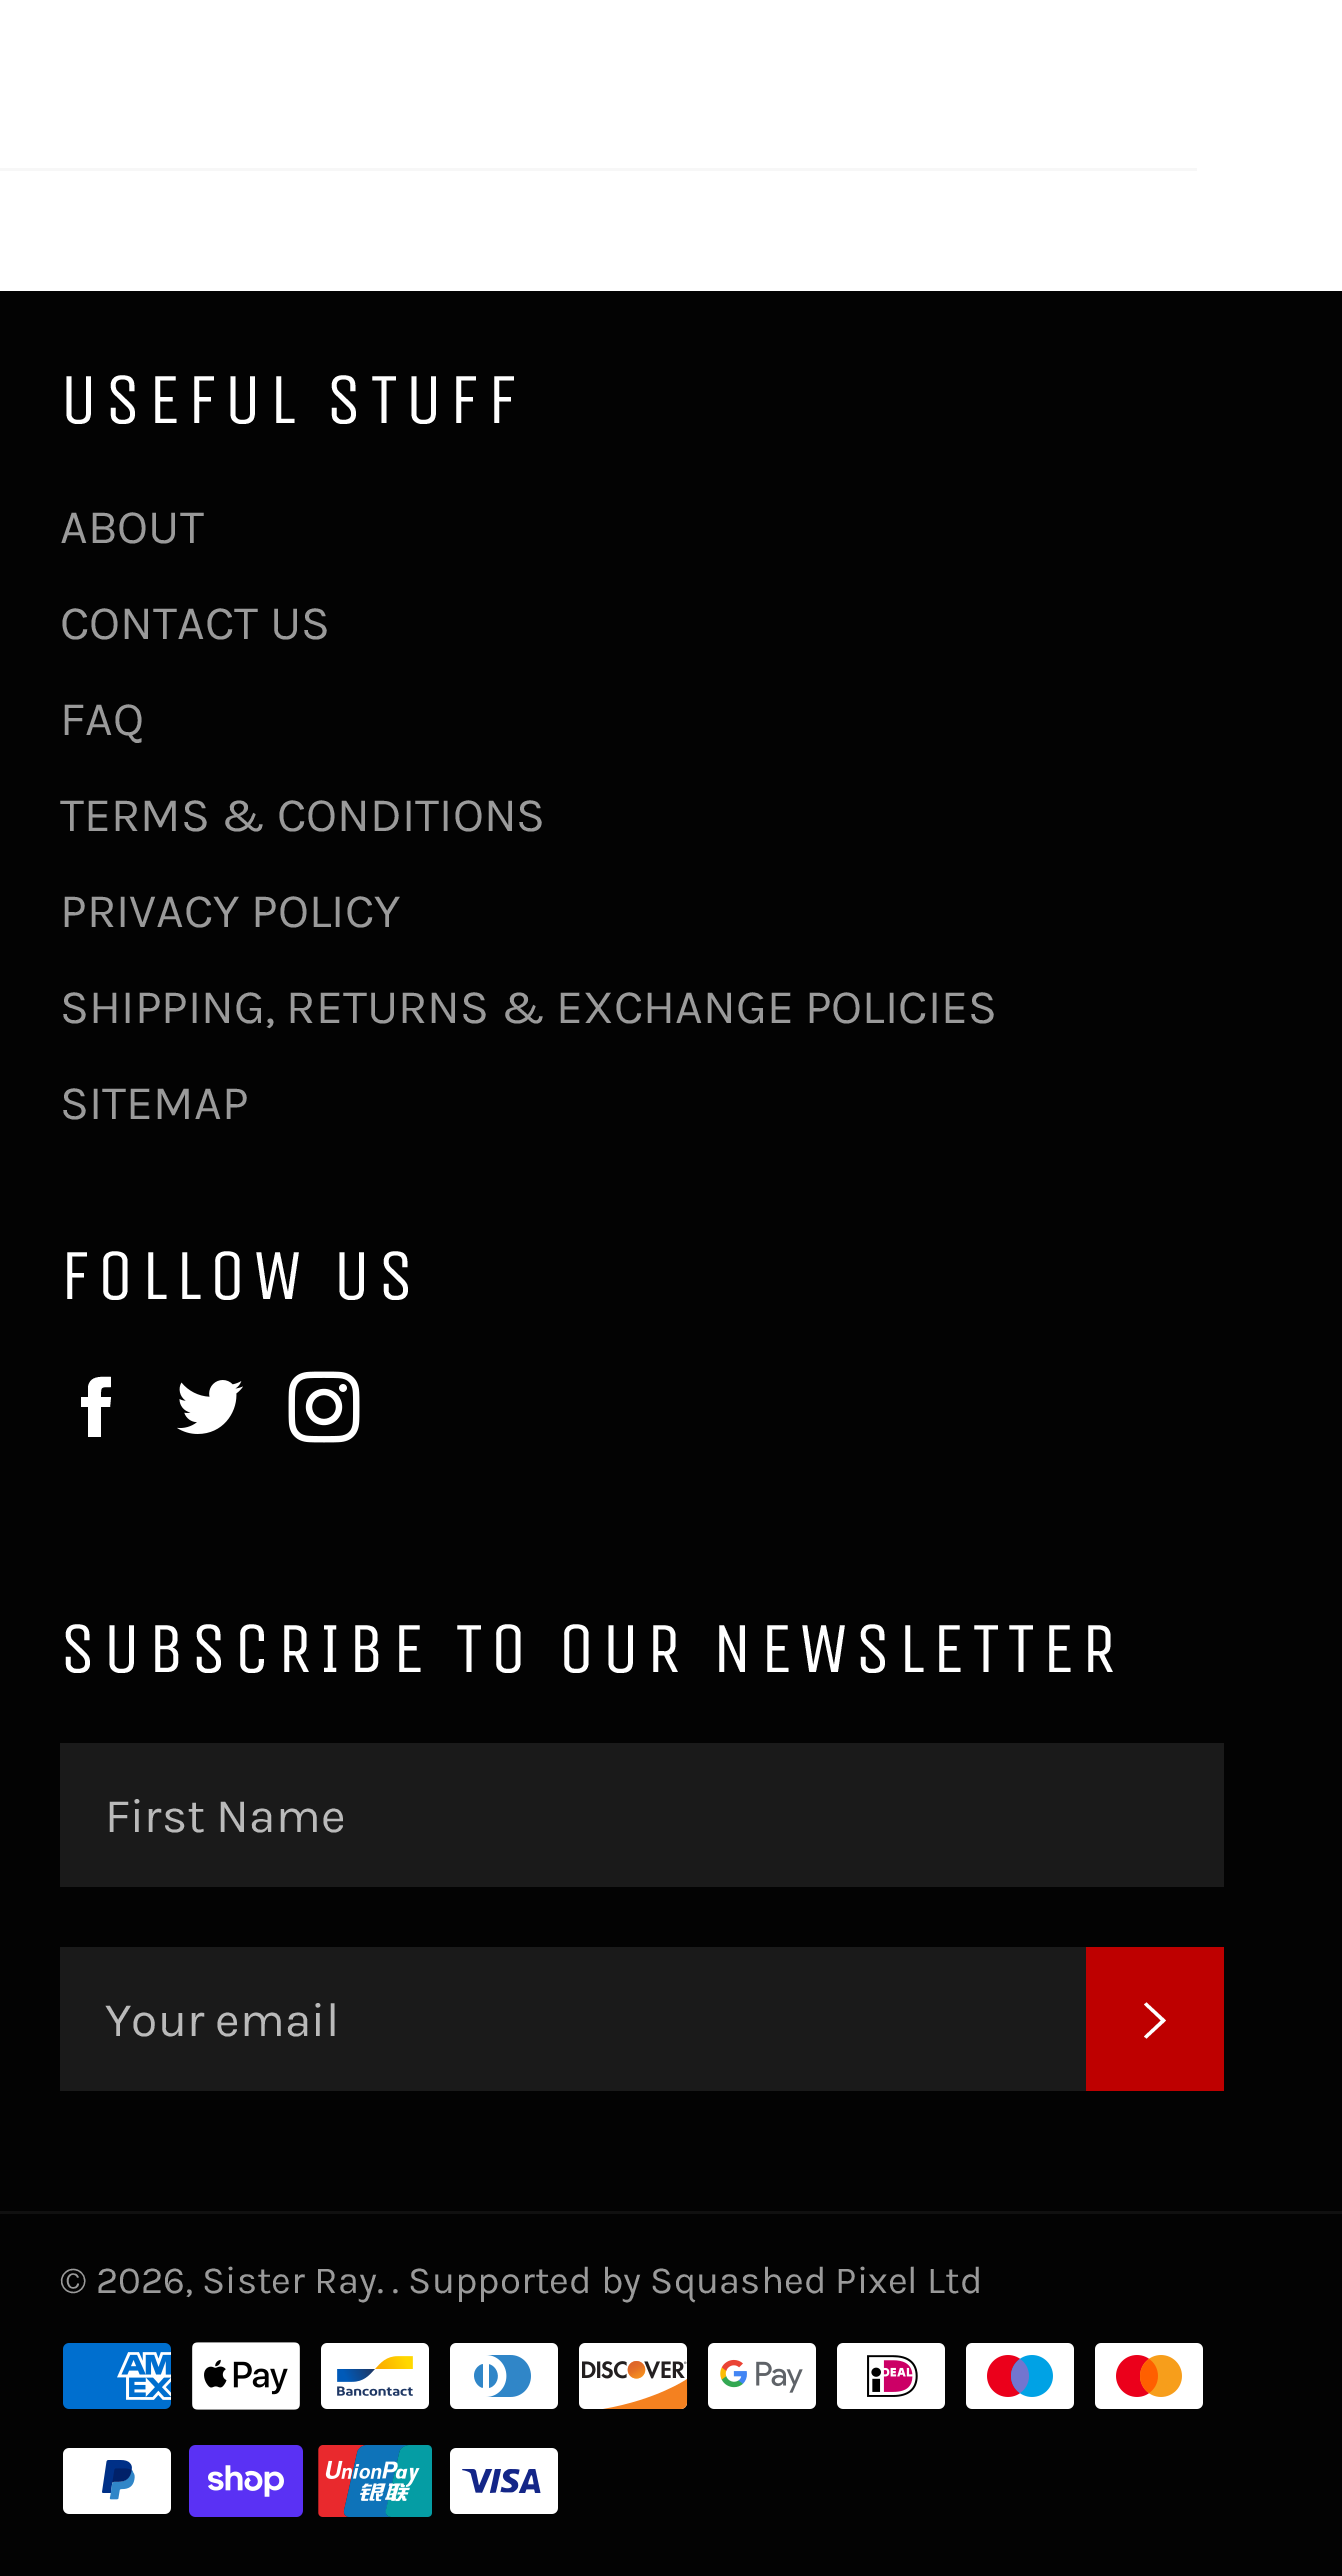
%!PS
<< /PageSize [1342 2576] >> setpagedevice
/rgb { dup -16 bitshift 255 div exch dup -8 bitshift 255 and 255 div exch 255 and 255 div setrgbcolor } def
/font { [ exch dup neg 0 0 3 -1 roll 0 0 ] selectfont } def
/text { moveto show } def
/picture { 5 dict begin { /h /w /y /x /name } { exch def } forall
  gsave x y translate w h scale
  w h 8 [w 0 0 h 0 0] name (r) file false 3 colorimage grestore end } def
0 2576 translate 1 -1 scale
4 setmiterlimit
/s1 { /Karla-Regular 48 font 16#9A9A9A rgb } def
/s2 { /Karla-Regular 48 font 16#BABABA rgb } def
/s3 { /Karla-Regular 38.4 font 16#9A9A9A rgb } def
16#FFFFFF rgb
0 0 1342 2576 rectfill
16#F7F7F7 rgb
0 168 1197 3 rectfill
16#030303 rgb
0 291 1342 2285 rectfill
/UnicaOne-Regular 72 font
16#FFFFFF rgb
60 423 moveto 7.2 0 (USEFUL STUFF) ashow
s1
(ABOUT) 60 543 text
(CONTACT US) 60 639 text
(FAQ) 60 735 text
(TERMS & CONDITIONS) 60 831 text
(PRIVACY POLICY) 60 927 text
(SHIPPING, RETURNS & EXCHANGE POLICIES) 60 1023 text
(SITEMAP) 60 1119 text
/UnicaOne-Regular 72 font
16#FFFFFF rgb
60 1299 moveto 7.2 0 (FOLLOW US) ashow
101 1397 moveto 101 1387 100 1387 111 1387 curveto 111 1377 lineto 102 1377 90 1375 88 1387 curveto 88 1397 lineto 81 1397 lineto 81 1407 lineto 88 1407 lineto 88 1437 lineto 101 1437 lineto 101 1407 lineto 110 1407 lineto 111 1397 lineto closepath fill
(pic1.raw) 177 1380 66 54 picture
(pic2.raw) 288 1371 72 72 picture
60 1672 moveto 7.2 0 (SUBSCRIBE TO OUR NEWSLETTER) ashow
16#1A1A1A rgb
60 1743 1164 144 rectfill
s2
(First Name) 105 1832 text
16#1A1A1A rgb
60 1947 1026 144 rectfill
s2
(Your email) 105 2036 text
16#BE0000 rgb
1086 1947 138 144 rectfill
16#FFFFFF rgb
1144 2004.5 moveto 1146.5 2002.5 lineto 1166 2020.5 lineto 1146.5 2038.5 lineto 1144 2036.5 lineto 1161 2020.5 lineto closepath fill
16#101010 rgb
0 2211 1342 3 rectfill
s3
(© 2026, Sister Ray. . Supported by Squashed Pixel Ltd) 60 2293 text
(pic3.raw) 63 2343 108 66 picture
(pic4.raw) 192 2342 108 68 picture
(pic5.raw) 321 2343 108 66 picture
(pic6.raw) 450 2343 108 66 picture
(pic7.raw) 579 2343 109 66 picture
(pic8.raw) 708 2343 108 66 picture
(pic9.raw) 837 2343 108 66 picture
(pic10.raw) 966 2343 108 66 picture
(pic11.raw) 1095 2343 108 66 picture
(pic12.raw) 63 2448 108 66 picture
(pic13.raw) 189 2445 114 72 picture
(pic14.raw) 318 2445 114 72 picture
(pic15.raw) 450 2448 108 66 picture
showpage
